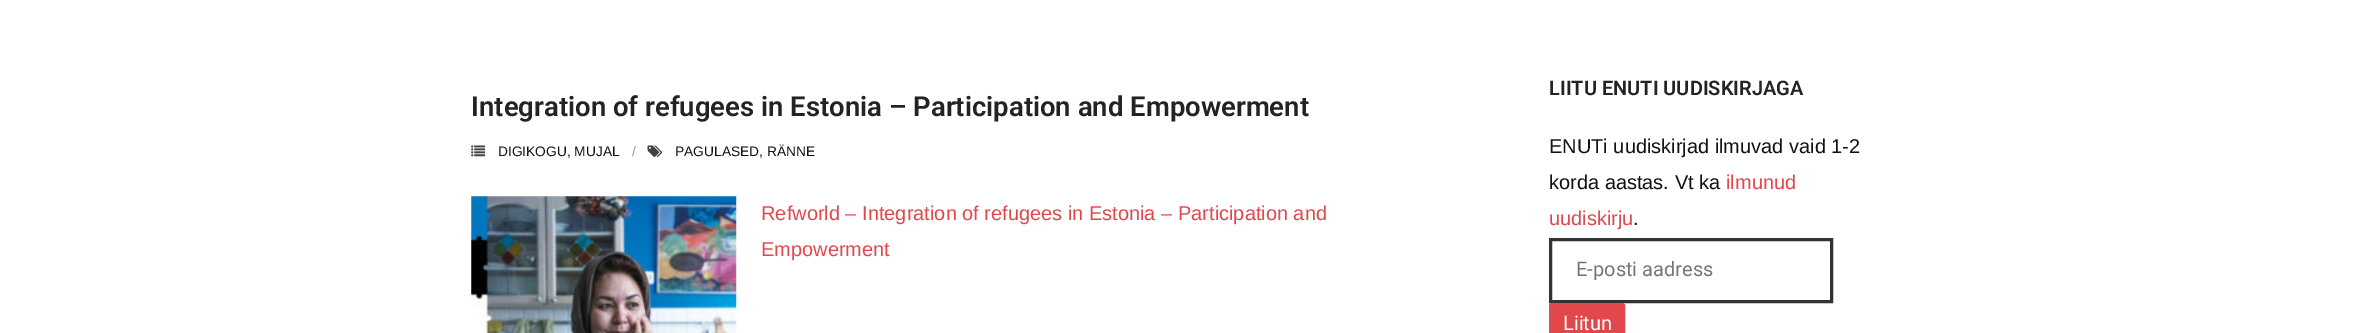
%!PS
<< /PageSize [2367 333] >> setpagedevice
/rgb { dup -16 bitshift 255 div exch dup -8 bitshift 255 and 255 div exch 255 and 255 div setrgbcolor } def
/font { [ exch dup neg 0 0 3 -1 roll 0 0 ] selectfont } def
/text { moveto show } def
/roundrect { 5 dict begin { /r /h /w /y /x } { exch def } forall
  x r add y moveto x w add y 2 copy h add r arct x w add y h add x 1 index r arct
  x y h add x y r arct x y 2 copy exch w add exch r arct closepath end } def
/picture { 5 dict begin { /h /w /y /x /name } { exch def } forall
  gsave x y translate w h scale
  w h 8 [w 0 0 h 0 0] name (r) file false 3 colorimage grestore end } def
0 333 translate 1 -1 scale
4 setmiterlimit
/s1 { /Roboto-SemiBold 27.5 font 16#232323 rgb } def
/s2 { /LiberationSans-Regular 13.75 font 16#111111 rgb } def
/s3 { /LiberationSans-Regular 13.75 font 16#999999 rgb } def
/s4 { /LiberationSans-Regular 20 font 16#E0484C rgb } def
/s5 { /Roboto-SemiBold 20 font 16#232323 rgb } def
/s6 { /LiberationSans-Regular 20 font 16#111111 rgb } def
/s7 { /Roboto-Regular 20 font 16#757575 rgb } def
/s8 { /Roboto-Regular 20 font 16#FFFFFF rgb } def
16#FFFFFF rgb
0 0 2367 333 rectfill
s1
(Integration of refugees in Estonia – Participation and Empowerment) 471 116 text
(pic1.raw) 471 145 14 12 picture
s2
(DIGIKOGU, MUJAL) 498 156 text
s3
(/) 632 156 text
(pic2.raw) 647 145 15 12 picture
s2
(PAGULASED, RÄNNE) 675 156 text
(pic3.raw) 471 196 266 137 picture
s4
(Refworld – Integration of refugees in Estonia – Participation and) 761 220 text
(Empowerment) 761 256 text
s5
(LIITU ENUTI UUDISKIRJAGA) 1549 95 text
s6
(ENUTi uudiskirjad ilmuvad vaid 1-2) 1549 153 text
(korda aastas. Vt ka) 1549 189 text
s4
(ilmunud) 1726 189 text
(uudiskirju) 1549 225 text
s6
(.) 1633 225 text
16#333333 rgb
3 setlinewidth
1550.5 239.5 281 62 rectstroke
s7
(E-posti aadress) 1576 276 text
16#E0484C rgb
1549.5 303.5 75 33 2 roundrect gsave fill grestore
1 setlinewidth
stroke
s8
(Liitun) 1563 330 text
showpage
